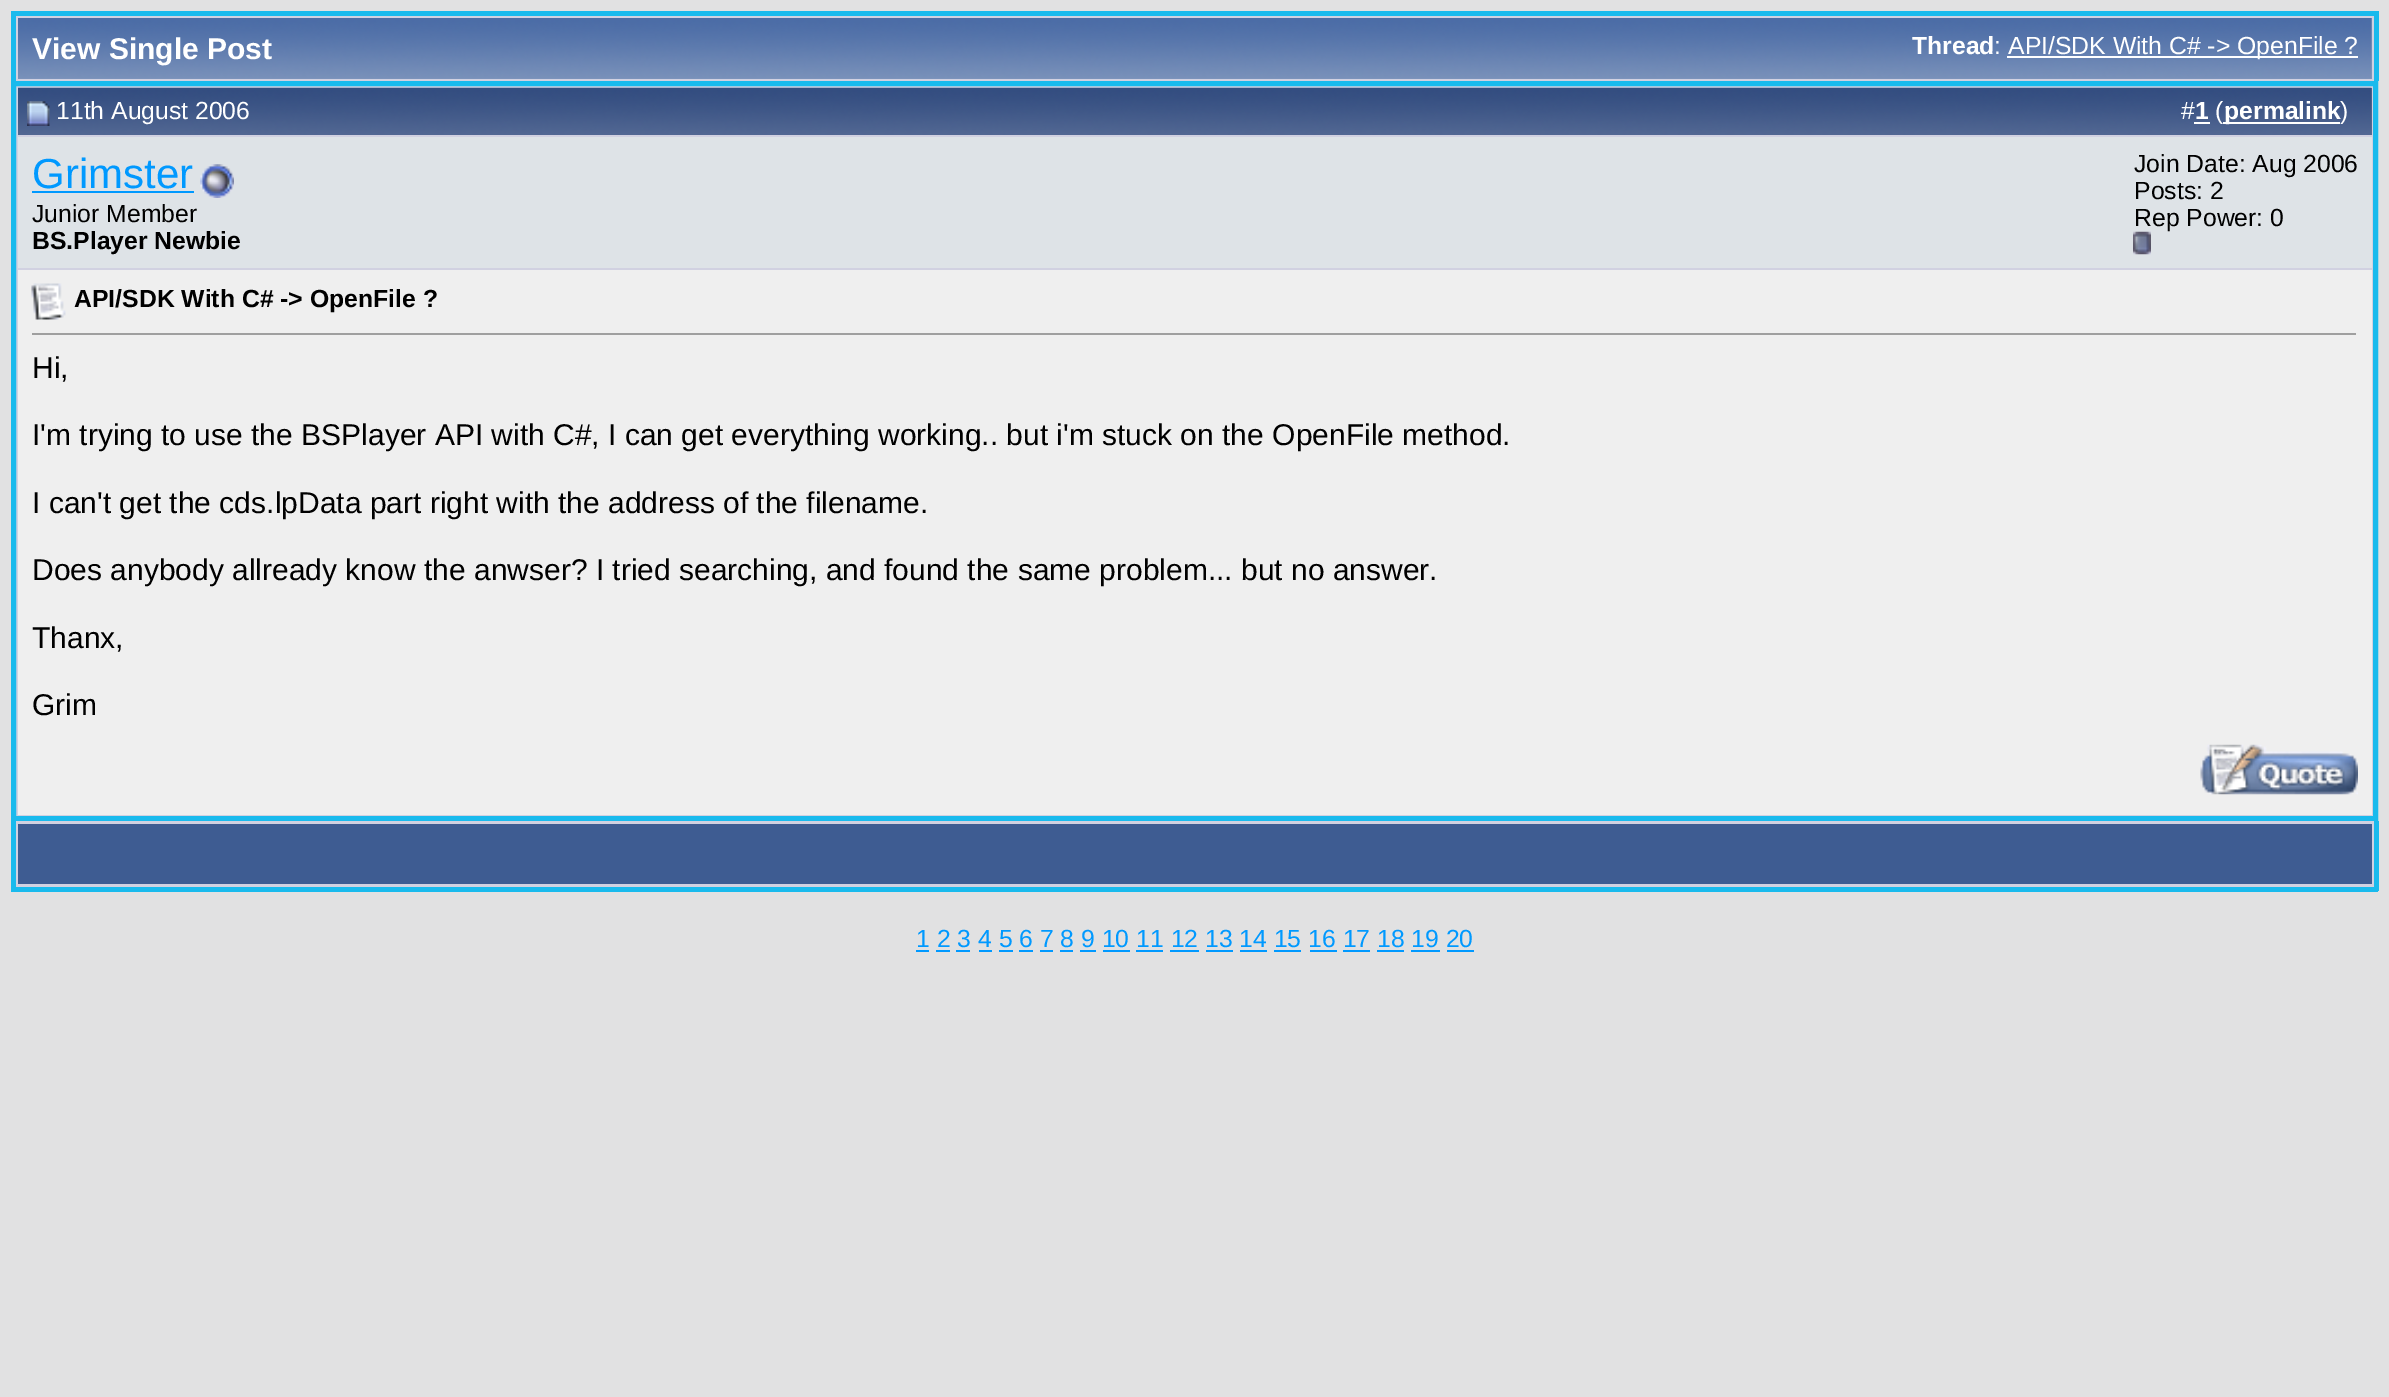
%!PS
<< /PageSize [2389 1397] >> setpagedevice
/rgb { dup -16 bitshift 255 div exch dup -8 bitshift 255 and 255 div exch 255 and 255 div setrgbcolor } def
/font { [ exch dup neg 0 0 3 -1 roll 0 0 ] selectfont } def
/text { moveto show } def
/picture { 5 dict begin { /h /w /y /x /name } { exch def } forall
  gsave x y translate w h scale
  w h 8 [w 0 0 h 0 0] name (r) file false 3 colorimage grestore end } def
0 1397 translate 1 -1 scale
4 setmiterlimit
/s1 { /LiberationSans-Bold 30 font 16#FFFFFF rgb } def
/s2 { /LiberationSans-Bold 24.75 font 16#FFFFFF rgb } def
/s3 { /LiberationSans-Regular 24.75 font 16#FFFFFF rgb } def
/s4 { /LiberationSans-Regular 42 font 16#0099FF rgb } def
/s5 { /LiberationSans-Regular 24.75 font 16#000000 rgb } def
/s6 { /LiberationSans-Bold 24.75 font 16#000000 rgb } def
/s7 { /LiberationSans-Regular 30 font 16#000000 rgb } def
/s8 { /LiberationSans-Regular 24.75 font 16#0099FF rgb } def
16#E1E1E2 rgb
0 0 2389 1397 rectfill
16#D1D1E1 rgb
16 16 2358 65 rectfill
16#19BAED rgb
11 11 2367 5 rectfill
2374 11 5 70 rectfill
11 11 5 70 rectfill
16#869BBF rgb
18 18 2354 61 rectfill
(pic1.raw) 18 18 2354 61 picture
s1
(View Single Post) 32 59 text
s2
(Thread) 1912 54 text
s3
(:) 1994 54 text
2007 56 351 2 rectfill
(API/SDK With C# -> OpenFile ?) 2008 54 text
16#D1D1E1 rgb
13.5 83.5 moveto 2375.5 83.5 lineto 2375.5 818.5 lineto 13.5 818.5 lineto closepath gsave fill grestore
16#19BAED rgb
5 setlinewidth
stroke
16#5C7099 rgb
2371 88 1 47 rectfill
(pic2.raw) 18 87 2354 48 picture
(pic3.raw) 27 101 23 25 picture
s3
(11th August 2006) 56 119 text
(#) 2181 119 text
s2
(1) 2195 119 text
2194 122 16 2 rectfill
s3
(\() 2215 119 text
2223 122 117 2 rectfill
s2
(permalink) 2224 119 text
s3
(\)) 2340 119 text
16#DEE3E7 rgb
18 137 2354 131 rectfill
s4
(Grimster) 32 188 text
32 191 162 2 rectfill
(pic4.raw) 200 164 34 34 picture
s5
(Junior Member) 32 222 text
s6
(BS.Player Newbie) 32 249 text
s5
(Join Date: Aug 2006) 2134 172 text
(Posts: 2) 2134 199 text
(Rep Power: 0) 2134 226 text
(pic5.raw) 2133 231 18 24 picture
16#EFEFEF rgb
18 270 2354 545 rectfill
(pic6.raw) 31 283 35 37 picture
s6
(API/SDK With C# -> OpenFile ?) 74 307 text
16#9F9F9F rgb
32 333 2326 2 rectfill
16#EEEEEE rgb
2356 333 2 2 rectfill
s7
(Hi,) 32 378 text
(I'm trying to use the BSPlayer API with C#, I can get everything working.. but i'm stuck on the OpenFile method.) 32 445 text
(I can't get the cds.lpData part right with the address of the filename.) 32 513 text
(Does anybody allready know the anwser? I tried searching, and found the same problem... but no answer.) 32 580 text
(Thanx,) 32 648 text
(Grim) 32 715 text
(pic7.raw) 2200 744 158 51 picture
16#D1D1E1 rgb
16 821 2358 66 rectfill
16#19BAED rgb
2374 821 5 70 rectfill
11 887 2367 5 rectfill
11 821 5 70 rectfill
16#3E5C92 rgb
18 824 2354 60 rectfill
s8
(1 2 3 4 5 6 7 8 9 10 11 12 13 14 15 16 17 18 19 20) 916 947 text
916 950 13 2 rectfill
936 950 14 2 rectfill
956 950 14 2 rectfill
979 950 13 2 rectfill
999 950 14 2 rectfill
1019 950 14 2 rectfill
1040 950 13 2 rectfill
1060 950 13 2 rectfill
1080 950 16 2 rectfill
1103 950 27 2 rectfill
1136 950 27 2 rectfill
1170 950 29 2 rectfill
1206 950 27 2 rectfill
1240 950 27 2 rectfill
1274 950 27 2 rectfill
1310 950 27 2 rectfill
1343 950 27 2 rectfill
1377 950 27 2 rectfill
1411 950 29 2 rectfill
1447 950 27 2 rectfill
showpage
